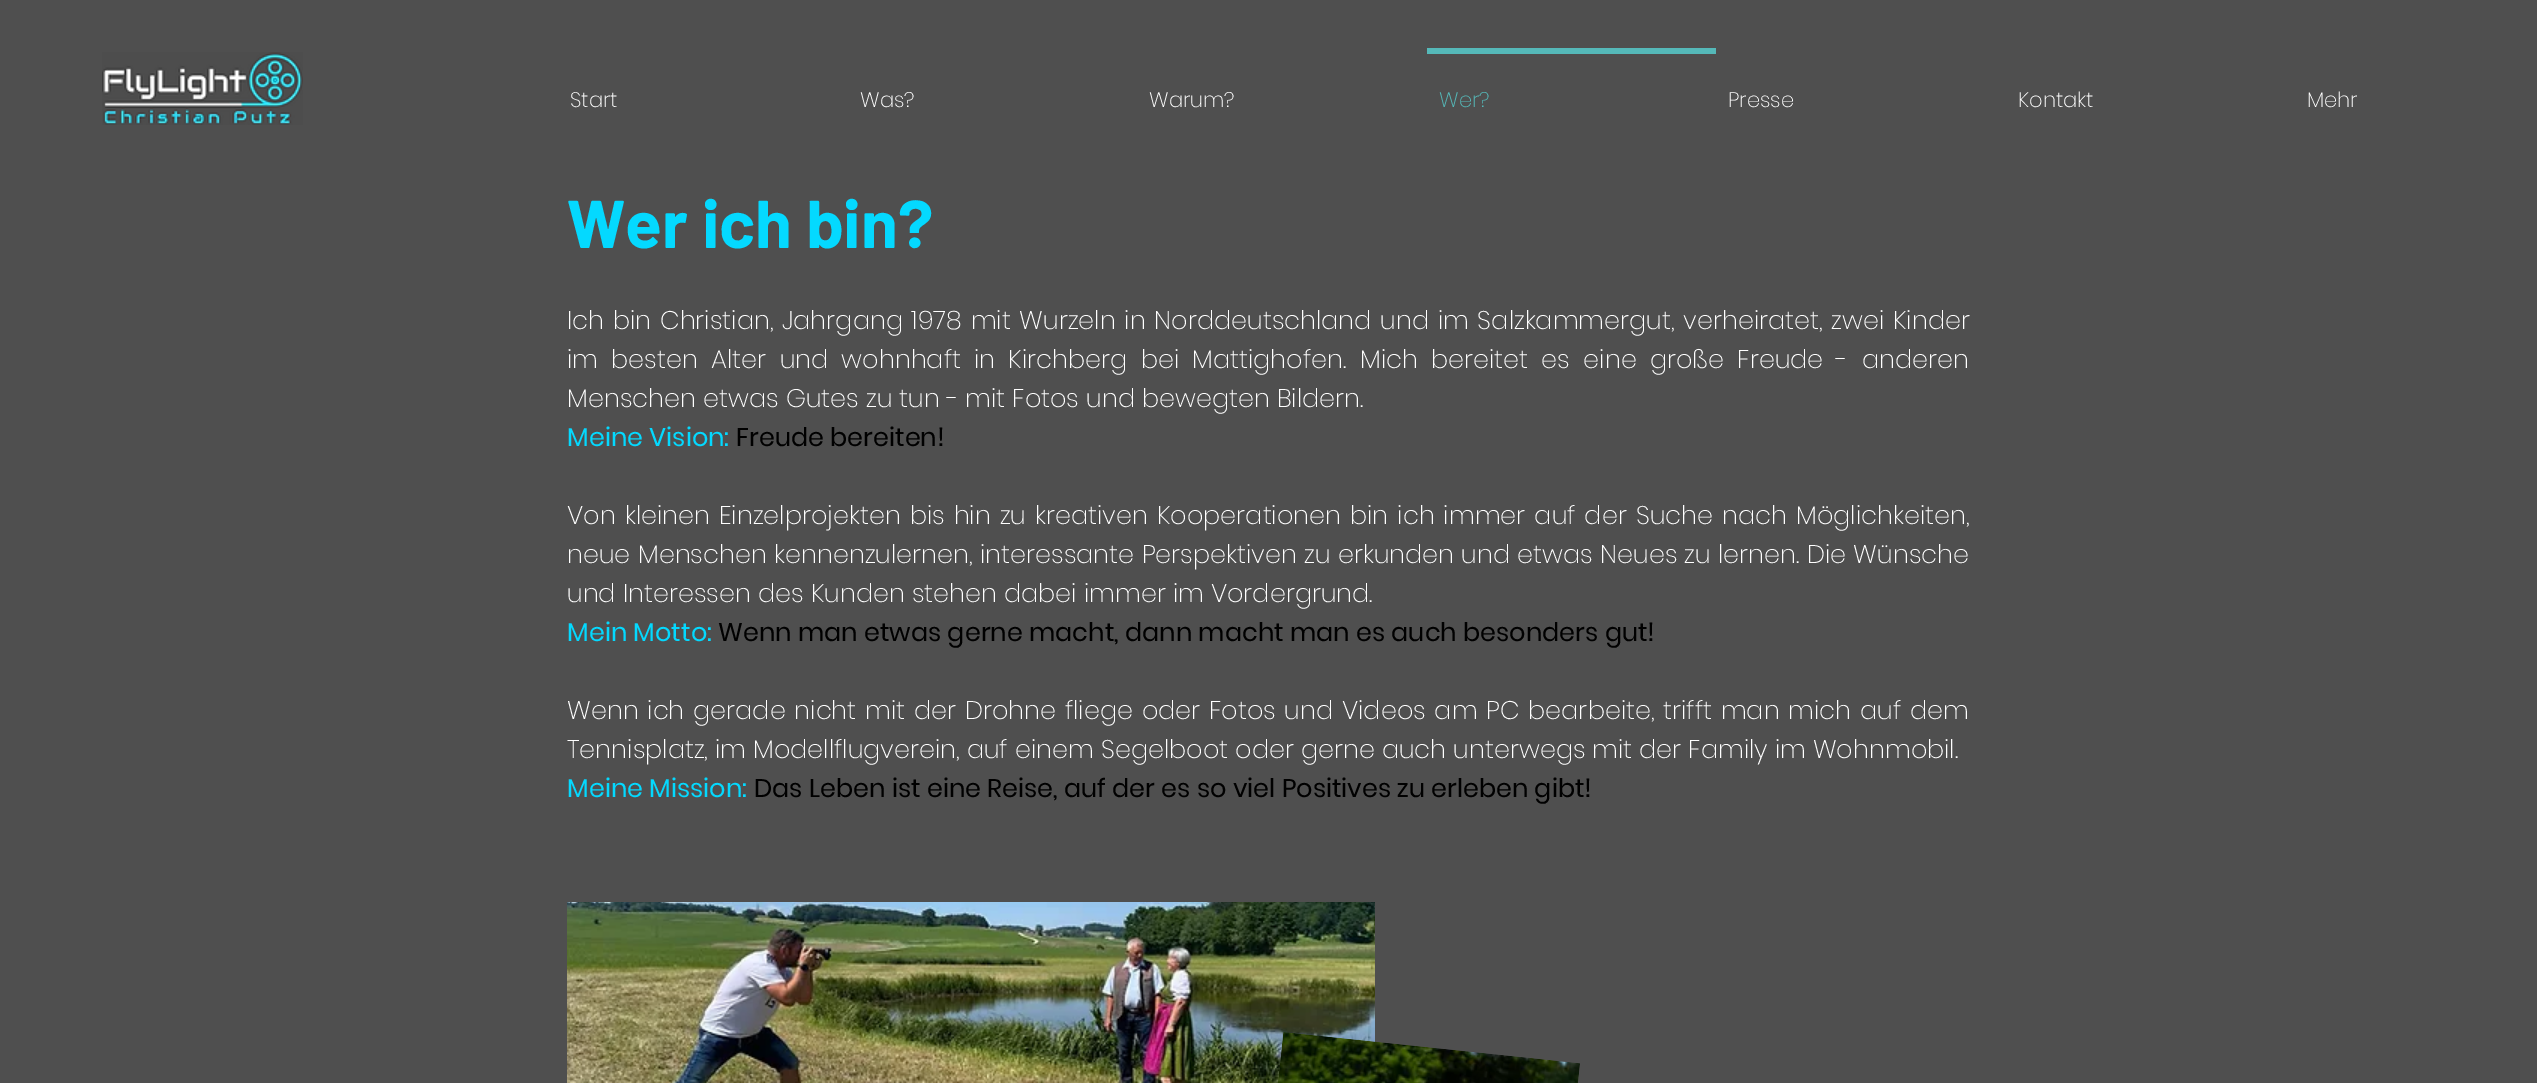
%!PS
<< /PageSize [2537 1083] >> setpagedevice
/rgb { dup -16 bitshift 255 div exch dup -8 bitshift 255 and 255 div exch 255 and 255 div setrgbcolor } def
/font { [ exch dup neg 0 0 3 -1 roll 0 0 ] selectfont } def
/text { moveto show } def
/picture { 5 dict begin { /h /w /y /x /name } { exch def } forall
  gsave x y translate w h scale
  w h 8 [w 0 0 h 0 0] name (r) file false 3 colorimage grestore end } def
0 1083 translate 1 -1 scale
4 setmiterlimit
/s1 { /Poppins-ExtraLight 21 font 16#FFFFFF rgb } def
/s2 { /Poppins-ExtraLight 21 font 16#55B9B9 rgb } def
/s3 { /Barlow-Bold 67.5 font 16#04D9FF rgb } def
/s4 { /Poppins-ExtraLight 25.5 font 16#FFFFFF rgb } def
/s5 { /Poppins-Regular 25.5 font 16#04D9FF rgb } def
/s6 { /Poppins-Regular 25.5 font 16#000000 rgb } def
16#4F4F4F rgb
0 0 2537 1083 rectfill
(pic1.raw) 102 52 201 73 picture
s1
(Start) 570 107 text
(Was?) 860 107 text
(Warum?) 1149 107 text
16#55B9B9 rgb
1427 48 289 6 rectfill
(Wer?) 1439 107 text
s1
(Presse) 1728 107 text
(Kontakt) 2018 107 text
(Mehr) 2307 107 text
s3
(Wer ich bin?) 567 248 text
/Poppins-ExtraLight 25.5 font
16#FFFFFF rgb
567 329 moveto 1.75 0 32 (Ich bin Christian, Jahrgang 1978 mit Wurzeln in Norddeutschland und im Salzkammergut, verheiratet, zwei Kinder) widthshow
567 368 moveto 6.25 0 32 (im besten Alter und wohnhaft in Kirchberg bei Mattighofen. Mich bereitet es eine große Freude - anderen) widthshow
(Menschen etwas Gutes zu tun - mit Fotos und bewegten Bildern.) 567 407 text
s5
(Meine Vision:) 567 446 text
s6
(Freude bereiten!) 736 446 text
/Poppins-ExtraLight 25.5 font
16#FFFFFF rgb
567 524 moveto 2 0 32 (Von kleinen Einzelprojekten bis hin zu kreativen Kooperationen bin ich immer auf der Suche nach Möglichkeiten,) widthshow
567 563 moveto 0.25 0 32 (neue Menschen kennenzulernen, interessante Perspektiven zu erkunden und etwas Neues zu lernen. Die Wünsche) widthshow
(und Interessen des Kunden stehen dabei immer im Vordergrund.) 567 602 text
s5
(Mein Motto:) 567 641 text
s6
(Wenn man etwas gerne macht, dann macht man es auch besonders gut!) 718 641 text
/Poppins-ExtraLight 25.5 font
16#FFFFFF rgb
567 719 moveto 1.75 0 32 (Wenn ich gerade nicht mit der Drohne fliege oder Fotos und Videos am PC bearbeite, trifft man mich auf dem) widthshow
(Tennisplatz, im Modellflugverein, auf einem Segelboot oder gerne auch unterwegs mit der Family im Wohnmobil.) 567 758 text
s5
(Meine Mission:) 567 797 text
s6
(Das Leben ist eine Reise, auf der es so viel Positives zu erleben gibt!) 754 797 text
(pic2.raw) 567 902 808 181 picture
(pic3.raw) 1278 1032 302 51 picture
showpage
